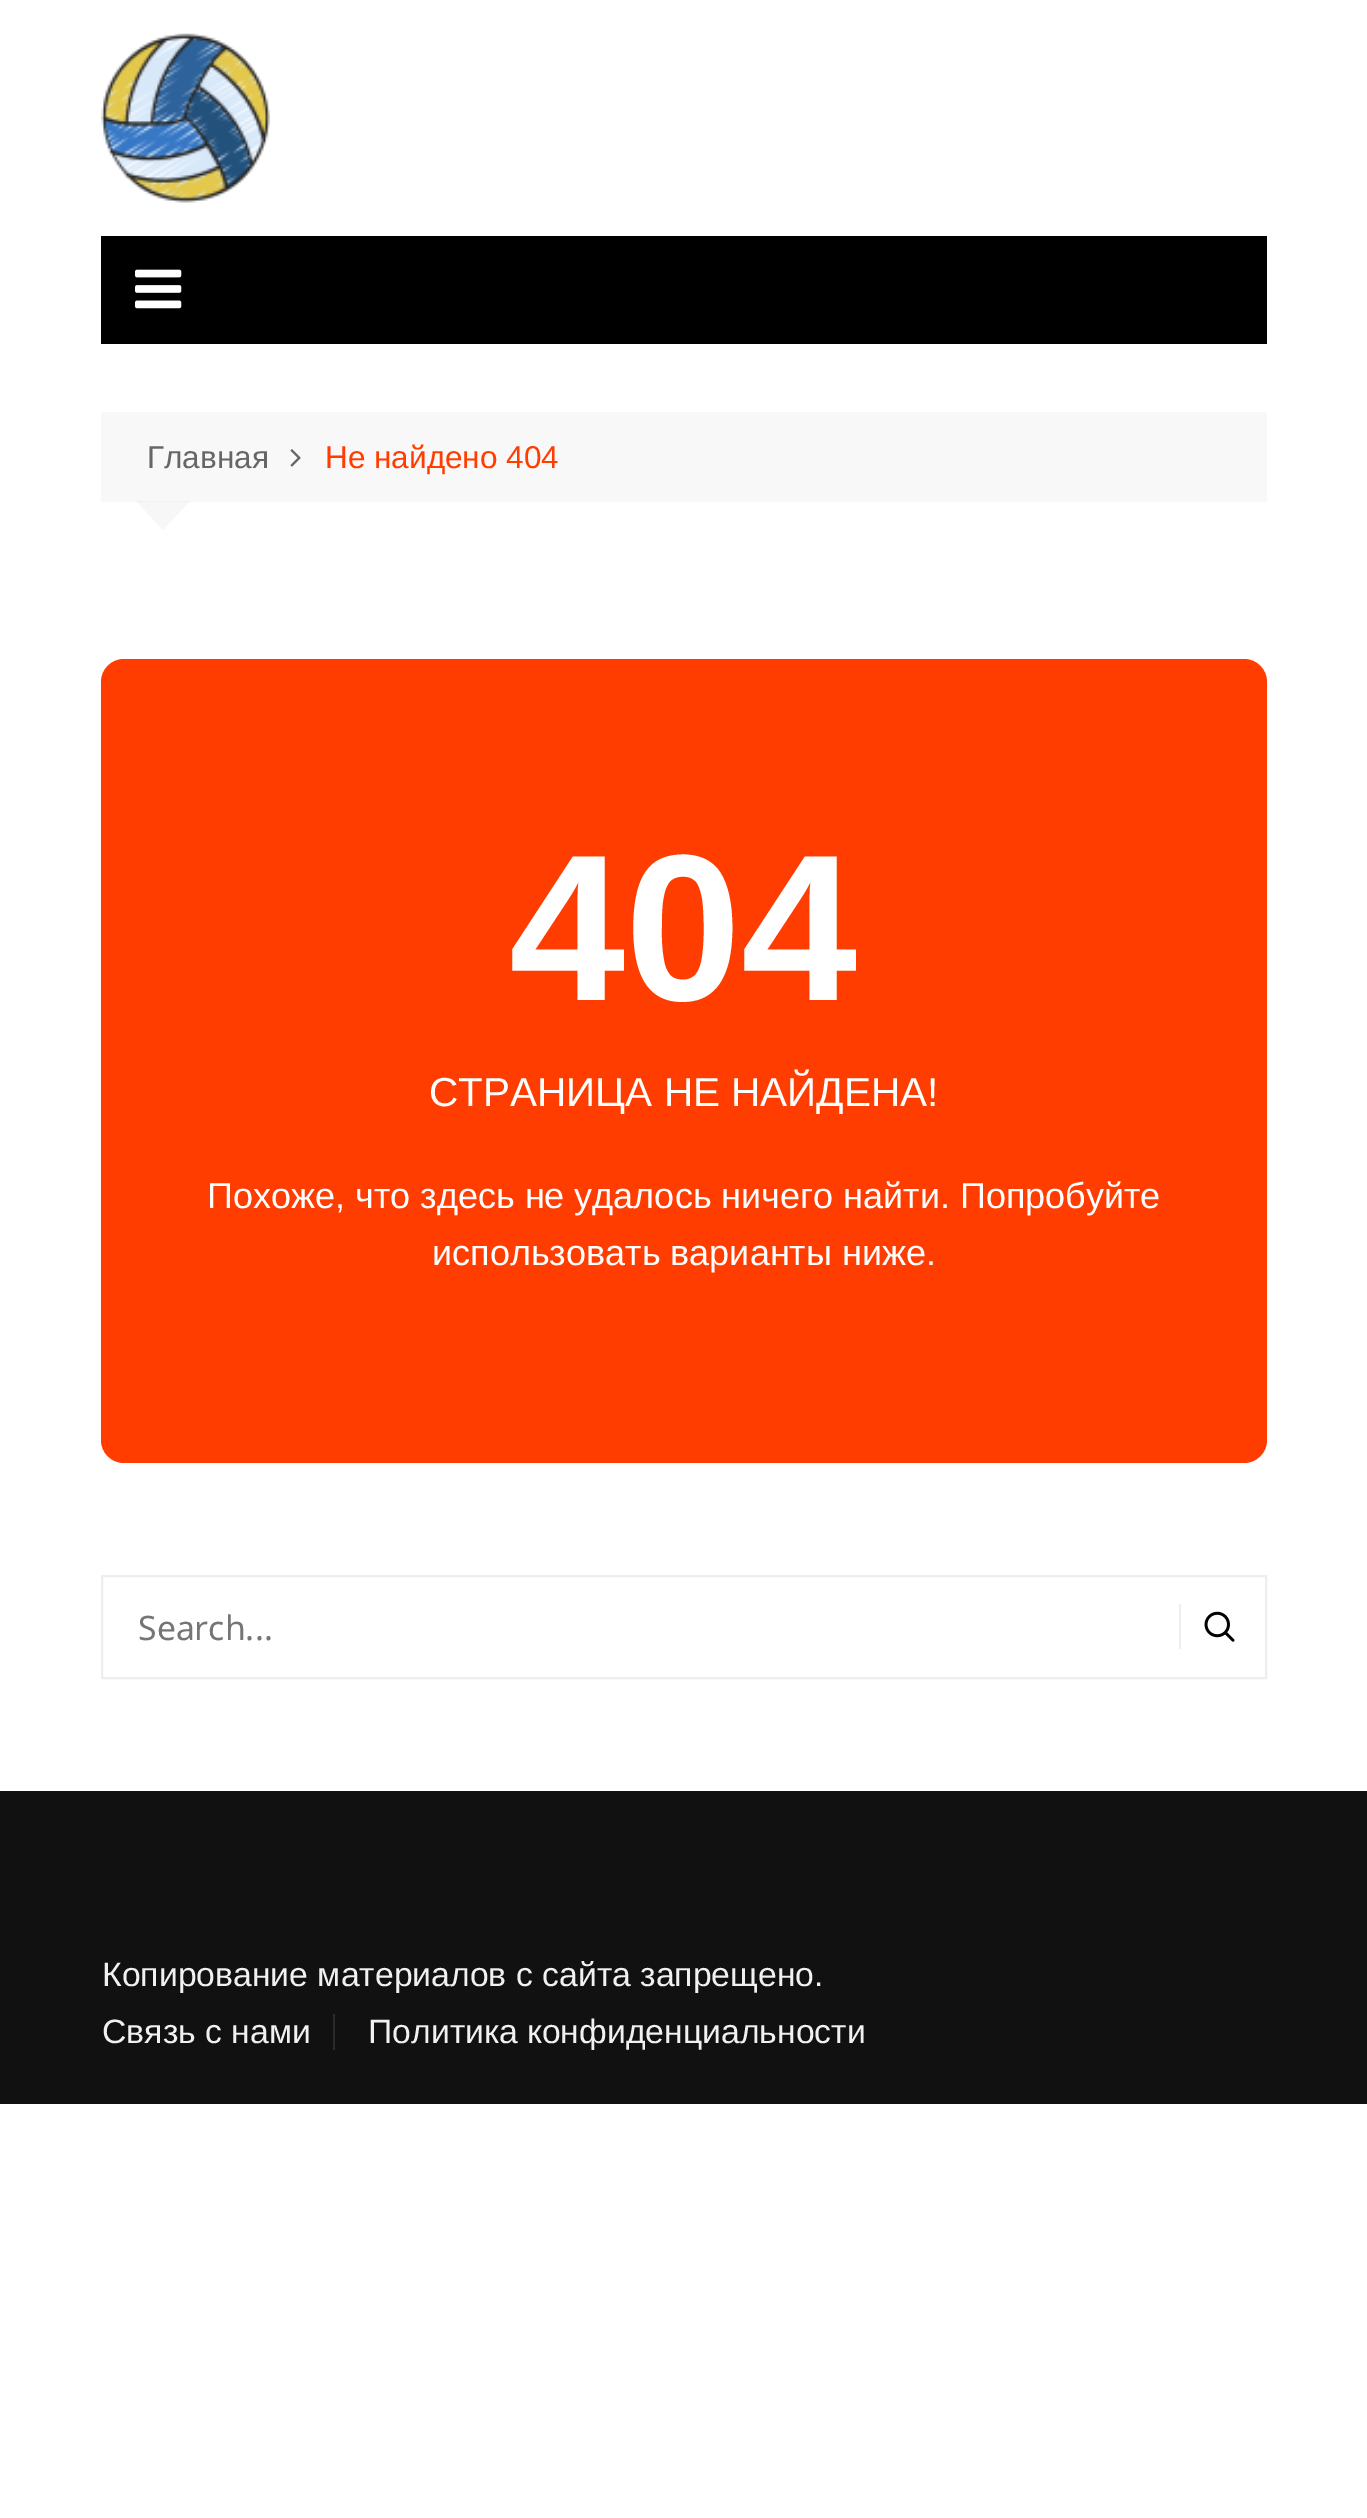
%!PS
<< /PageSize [1367 2518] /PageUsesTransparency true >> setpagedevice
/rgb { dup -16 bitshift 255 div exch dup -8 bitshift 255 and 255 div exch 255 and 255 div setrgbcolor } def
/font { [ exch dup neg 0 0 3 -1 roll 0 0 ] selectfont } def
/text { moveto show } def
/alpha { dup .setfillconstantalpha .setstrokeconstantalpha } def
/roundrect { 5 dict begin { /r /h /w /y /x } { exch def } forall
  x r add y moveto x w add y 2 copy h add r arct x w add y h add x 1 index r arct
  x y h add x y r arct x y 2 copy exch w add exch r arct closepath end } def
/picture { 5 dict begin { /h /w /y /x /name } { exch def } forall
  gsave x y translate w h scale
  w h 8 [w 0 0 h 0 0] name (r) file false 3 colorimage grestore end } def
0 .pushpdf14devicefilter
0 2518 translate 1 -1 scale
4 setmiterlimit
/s1 { /LiberationSans-Regular 31.5 font 16#666666 rgb } def
/s2 { /LiberationSans-Regular 31.5 font 16#FF3D00 rgb } def
/s3 { /LiberationSans-Bold 209 font 16#FFFFFF rgb } def
/s4 { /LiberationSans-Regular 40.5 font 16#FFFFFF rgb } def
/s5 { /LiberationSans-Regular 36 font 16#FFFFFF rgb } def
/s6 { /NotoSans-Regular 33.75 font 16#757575 rgb } def
/s7 { /LiberationSans-Regular 33.75 font 16#F1F1F1 rgb } def
16#FFFFFF rgb
0 0 1367 2518 rectfill
(pic1.raw) 101 33 169 170 picture
16#000000 rgb
101 236 1166 108 rectfill
(pic2.raw) 135 269 47 40 picture
16#F8F8F8 rgb
101 412 1166 90 rectfill
s1
(Главная) 147 468 text
(pic3.raw) 290 449 11 18 picture
s2
(Не найдено 404) 325 468 text
0.03 alpha
16#000000 rgb
136 501 moveto 190 501 lineto 163 530 lineto closepath fill
1 alpha
16#FF3D00 rgb
101 659 1166 804 23 roundrect fill
s3
(404) 509 1000 text
s4
(СТРАНИЦА НЕ НАЙДЕНА!) 429 1106 text
s5
(Похоже, что здесь не удалось ничего найти. Попробуйте) 207 1208 text
(использовать варианты ниже.) 432 1265 text
16#EEEEEE rgb
2 setlinewidth
102 1576 1164 102 rectstroke
s6
(Search...) 138 1640 text
16#EEEEEE rgb
1179 1604 2 45 rectfill
(pic4.raw) 1204 1611 31 31 picture
16#111111 rgb
0 1791 1367 313 rectfill
s7
(Копирование материалов с сайта запрещено.) 102 1986 text
16#2B2B2B rgb
333 2014 2 36 rectfill
s7
(Связь с нами) 102 2043 text
(Политика конфиденциальности) 368 2043 text
.poppdf14devicefilter showpage
